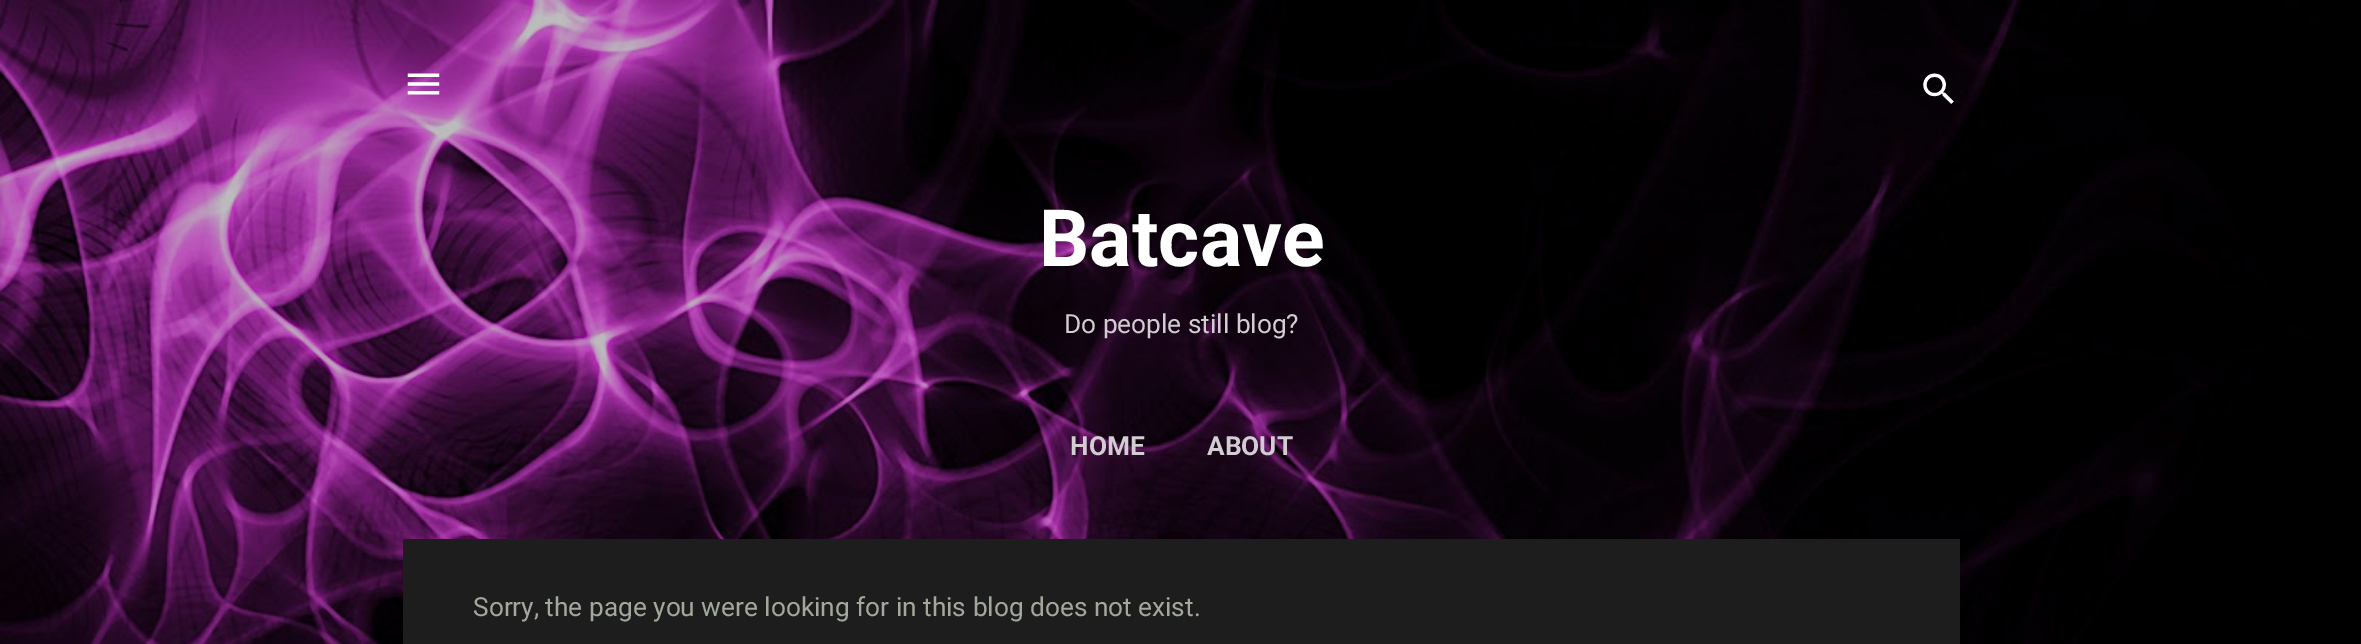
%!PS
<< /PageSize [2361 644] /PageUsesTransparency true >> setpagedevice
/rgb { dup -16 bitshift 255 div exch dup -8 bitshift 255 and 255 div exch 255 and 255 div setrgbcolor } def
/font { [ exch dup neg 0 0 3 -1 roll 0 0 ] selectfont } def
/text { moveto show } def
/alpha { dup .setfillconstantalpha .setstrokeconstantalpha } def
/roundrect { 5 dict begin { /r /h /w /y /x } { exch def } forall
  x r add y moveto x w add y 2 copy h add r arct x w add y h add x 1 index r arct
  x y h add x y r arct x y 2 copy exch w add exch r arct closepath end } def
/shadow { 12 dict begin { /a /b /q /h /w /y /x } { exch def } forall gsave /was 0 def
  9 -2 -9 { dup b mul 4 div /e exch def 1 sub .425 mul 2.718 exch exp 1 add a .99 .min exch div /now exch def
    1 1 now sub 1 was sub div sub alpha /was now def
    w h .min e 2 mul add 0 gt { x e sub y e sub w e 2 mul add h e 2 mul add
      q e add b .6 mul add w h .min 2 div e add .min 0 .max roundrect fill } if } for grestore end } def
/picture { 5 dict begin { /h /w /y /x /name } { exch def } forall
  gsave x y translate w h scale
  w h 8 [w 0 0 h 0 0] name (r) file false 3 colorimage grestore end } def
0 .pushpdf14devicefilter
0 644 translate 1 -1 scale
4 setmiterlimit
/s1 { /Roboto-Bold 79 font 16#FFFFFF rgb } def
/s2 { /Roboto-Regular 26.25 font 16#D1CDD1 rgb } def
/s3 { /Roboto-Bold 26.25 font 16#D1CDD1 rgb } def
/s4 { /Roboto-Regular 26.25 font 16#A2A89B rgb } def
16#000000 rgb
0 0 2361 644 rectfill
(pic1.raw) 0 0 2321 644 picture
-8 2 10 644 0 2.5 0.1 shadow
(pic2.raw) 407 73 33 22 picture
(pic3.raw) 1923 73 31 31 picture
s1
(Batcave) 1039 266 text
s2
(Do people still blog?) 1064 333 text
s3
(HOME) 1070 455 text
(ABOUT) 1207 455 text
16#1D1D1D rgb
403 539 1557 105 rectfill
s4
(Sorry, the page you were looking for in this blog does not exist.) 473 616 text
.poppdf14devicefilter showpage
